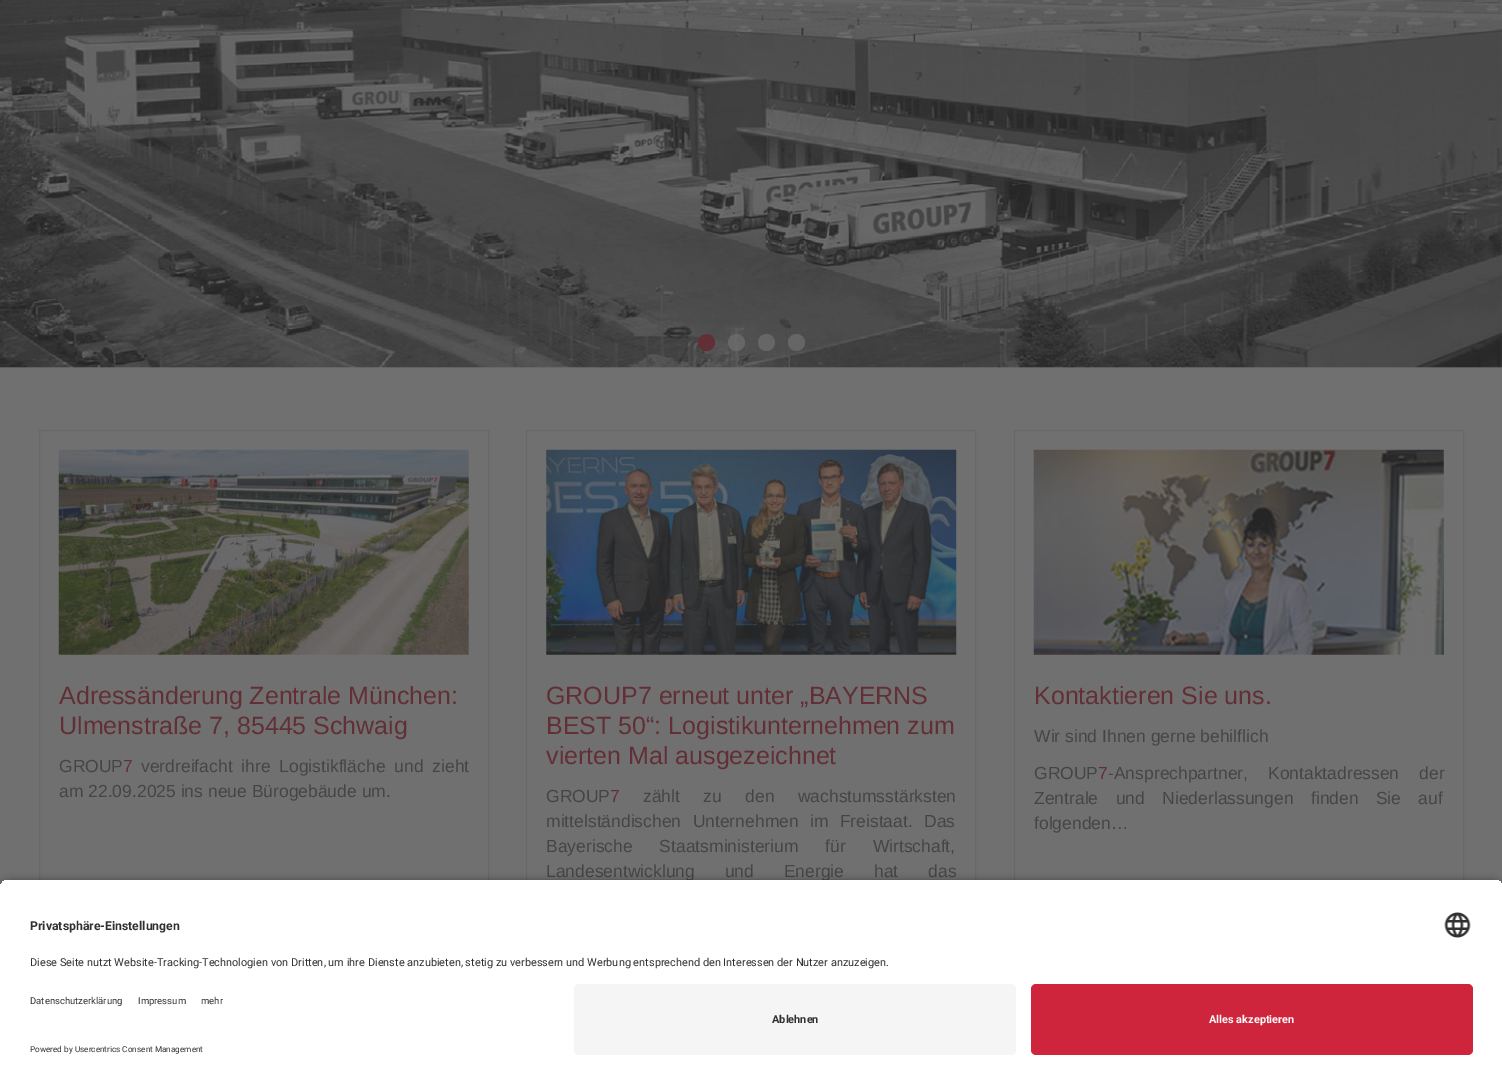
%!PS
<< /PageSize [1502 1085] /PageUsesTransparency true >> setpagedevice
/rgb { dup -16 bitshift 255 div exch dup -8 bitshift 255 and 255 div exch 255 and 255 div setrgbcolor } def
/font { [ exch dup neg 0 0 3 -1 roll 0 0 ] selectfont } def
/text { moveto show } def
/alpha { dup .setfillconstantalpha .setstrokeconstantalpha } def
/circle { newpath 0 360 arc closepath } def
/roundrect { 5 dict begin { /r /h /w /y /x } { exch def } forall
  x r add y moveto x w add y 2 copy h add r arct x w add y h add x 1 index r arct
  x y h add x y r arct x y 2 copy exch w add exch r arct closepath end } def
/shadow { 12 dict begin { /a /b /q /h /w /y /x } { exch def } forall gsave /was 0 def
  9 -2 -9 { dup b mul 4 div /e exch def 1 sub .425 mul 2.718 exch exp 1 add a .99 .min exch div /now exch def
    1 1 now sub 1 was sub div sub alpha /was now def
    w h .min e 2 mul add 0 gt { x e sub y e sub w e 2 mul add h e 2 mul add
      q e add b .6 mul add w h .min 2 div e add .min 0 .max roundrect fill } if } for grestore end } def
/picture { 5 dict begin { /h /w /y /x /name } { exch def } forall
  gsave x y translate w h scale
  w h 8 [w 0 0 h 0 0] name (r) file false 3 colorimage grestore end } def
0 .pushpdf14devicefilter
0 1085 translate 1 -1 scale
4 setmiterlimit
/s1 { /LiberationSans-Regular 25 font 16#622F36 rgb } def
/s2 { /LiberationSans-Regular 17.5 font 16#454545 rgb } def
/s3 { /LiberationSans-Regular 17.5 font 16#622F36 rgb } def
/s4 { /Roboto-Bold 12.25 font 16#303030 rgb } def
/s5 { /Roboto-Regular 10.95 font 16#303030 rgb } def
/s6 { /Roboto-Regular 9.5 font 16#303030 rgb } def
/s7 { /Roboto-Regular 8.2 font 16#303030 rgb } def
/s8 { /Roboto-Bold 10.95 font 16#303030 rgb } def
/s9 { /Roboto-Bold 10.95 font 16#FAFAFA rgb } def
16#707070 rgb
0 0 1502 1085 rectfill
(pic1.raw) 0 0 1502 368 picture
16#622F36 rgb
706.5 342.5 8.5 circle fill
0.7 alpha
16#707070 rgb
736.5 342.5 8.5 circle fill
766.5 342.5 8.5 circle fill
796.5 342.5 8.5 circle fill
1 alpha
16#686868 rgb
39.5 430.5 449 565 rectstroke
(pic2.raw) 58 449 411 206 picture
s1
(Adressänderung Zentrale München:) 59 704 text
(Ulmenstraße 7, 85445 Schwaig) 59 734 text
s2
(GROUP) 59 772 text
s3
(7) 123 772 text
16#454545 rgb
141 772 moveto 4 0 32 (verdreifacht ihre Logistikfläche und zieht) widthshow
(am 22.09.2025 ins neue Bürogebäude um.) 59 797 text
16#686868 rgb
526.5 430.5 449 565 rectstroke
(pic3.raw) 546 449 411 206 picture
s1
(GROUP7 erneut unter „BAYERNS) 546 704 text
(BEST 50“: Logistikunternehmen zum) 546 734 text
(vierten Mal ausgezeichnet) 546 764 text
s2
(GROUP) 546 802 text
s3
(7) 610 802 text
16#454545 rgb
643 802 moveto 18.5 0 32 (zählt zu den wachstumsstärksten) widthshow
546 827 moveto 6.5 0 32 (mittelständischen Unternehmen im Freistaat. Das) widthshow
546 852 moveto 22 0 32 (Bayerische Staatsministerium für Wirtschaft,) widthshow
546 877 moveto 25 0 32 (Landesentwicklung und Energie hat das) widthshow
16#686868 rgb
1014.5 430.5 449 565 rectstroke
(pic4.raw) 1033 449 411 206 picture
s1
(Kontaktieren Sie uns.) 1034 704 text
s2
(Wir sind Ihnen gerne behilflich) 1034 742 text
(GROUP) 1034 779 text
s3
(7) 1098 779 text
16#454545 rgb
1108 779 moveto 15 0 32 (-Ansprechpartner, Kontaktadressen der) widthshow
1034 804 moveto 12.5 0 32 (Zentrale und Niederlassungen finden Sie auf) widthshow
(folgenden…) 1034 829 text
16#000000 rgb
0 883 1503 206 10 4.5 0.8 shadow
gsave
10 879 moveto 1493 879 lineto 1498.5 879 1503 883.5 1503 889 curveto 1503 974 lineto 0 974 lineto 0 889 lineto 0 883.5 4.5 879 10 879 curveto closepath clip newpath
16#FFFFFF rgb
0 880 1502 94 rectfill
grestore
s4
(Privatsphäre-Einstellungen) 30 930 text
(pic5.raw) 1444 912 27 26 picture
s5
(Diese Seite nutzt Website-Tracking-Technologien von Dritten, um ihre Dienste anzubieten, stetig zu verbessern und Werbung entsprechend den Interessen der Nutzer anzuzeigen.) 30 966 text
16#FFFFFF rgb
0 974 1502 111 rectfill
s6
(Datenschutzerklärung) 30 1004 text
(Impressum) 138 1004 text
(mehr) 201 1004 text
s7
(Powered by Usercentrics Consent Management) 30 1052 text
16#F5F5F5 rgb
574 984 442 71 5 roundrect fill
s8
(Ablehnen) 772 1023 text
16#CE253D rgb
1031 984 442 71 5 roundrect fill
s9
(Alles akzeptieren) 1209 1023 text
.poppdf14devicefilter showpage
